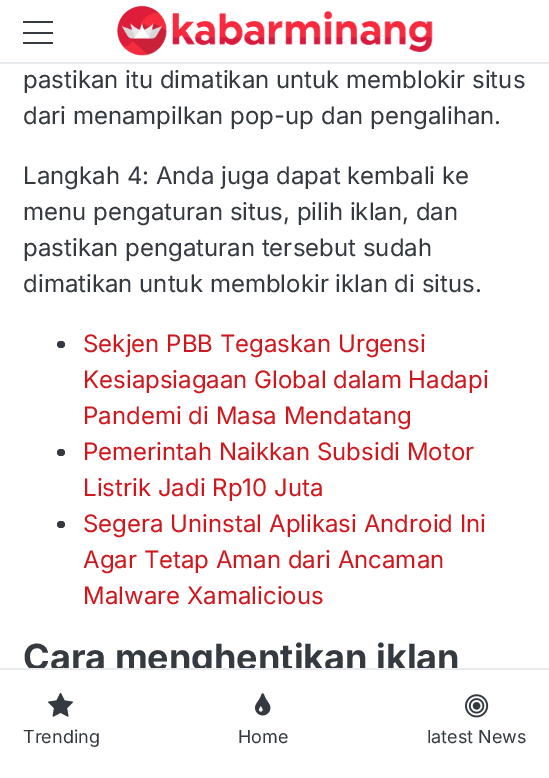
%!PS
<< /PageSize [549 778] >> setpagedevice
/rgb { dup -16 bitshift 255 div exch dup -8 bitshift 255 and 255 div exch 255 and 255 div setrgbcolor } def
/font { [ exch dup neg 0 0 3 -1 roll 0 0 ] selectfont } def
/text { moveto show } def
/roundrect { 5 dict begin { /r /h /w /y /x } { exch def } forall
  x r add y moveto x w add y 2 copy h add r arct x w add y h add x 1 index r arct
  x y h add x y r arct x y 2 copy exch w add exch r arct closepath end } def
/picture { 5 dict begin { /h /w /y /x /name } { exch def } forall
  gsave x y translate w h scale
  w h 8 [w 0 0 h 0 0] name (r) file false 3 colorimage grestore end } def
0 778 translate 1 -1 scale
4 setmiterlimit
/s1 { /Inter-Regular 24 font 16#343A40 rgb } def
/s2 { /Inter-Regular 24 font 16#CE181E rgb } def
/s3 { /Inter-Bold 36 font 16#343A40 rgb } def
/s4 { /Inter-Regular 18 font 16#343A40 rgb } def
16#FFFFFF rgb
0 0 549 778 rectfill
16#E9ECEF rgb
0 62 549 2 rectfill
16#343A40 rgb
23 32 30 2 rectfill
23 21 30 2 rectfill
23 42 30 2 rectfill
(pic1.raw) 117 5 316 51 picture
s1
(pastikan itu dimatikan untuk memblokir situs) 23 88 text
(dari menampilkan pop-up dan pengalihan.) 23 124 text
(Langkah 4: Anda juga dapat kembali ke) 23 184 text
(menu pengaturan situs, pilih iklan, dan) 23 220 text
(pastikan pengaturan tersebut sudah) 23 256 text
(dimatikan untuk memblokir iklan di situs.) 23 292 text
57 341 8 7 3.5 roundrect fill
s2
(Sekjen PBB Tegaskan Urgensi) 83 352 text
(Kesiapsiagaan Global dalam Hadapi) 83 388 text
(Pandemi di Masa Mendatang) 83 424 text
16#343A40 rgb
57 449 8 7 3.5 roundrect fill
s2
(Pemerintah Naikkan Subsidi Motor) 83 460 text
(Listrik Jadi Rp10 Juta) 83 496 text
16#343A40 rgb
57 521 8 7 3.5 roundrect fill
s2
(Segera Uninstal Aplikasi Android Ini) 83 532 text
(Agar Tetap Aman dari Ancaman) 83 568 text
(Malware Xamalicious) 83 604 text
s3
(Cara menghentikan iklan) 23 670 text
16#FFFFFF rgb
33 670 393 8 rectfill
16#E9ECEF rgb
0 668 549 2 rectfill
(pic2.raw) 48 692 25 25 picture
s4
(Trending) 23 743 text
(pic3.raw) 255 693 16 23 picture
(Home) 238 743 text
(pic4.raw) 465 694 24 24 picture
(latest News) 427 743 text
showpage
